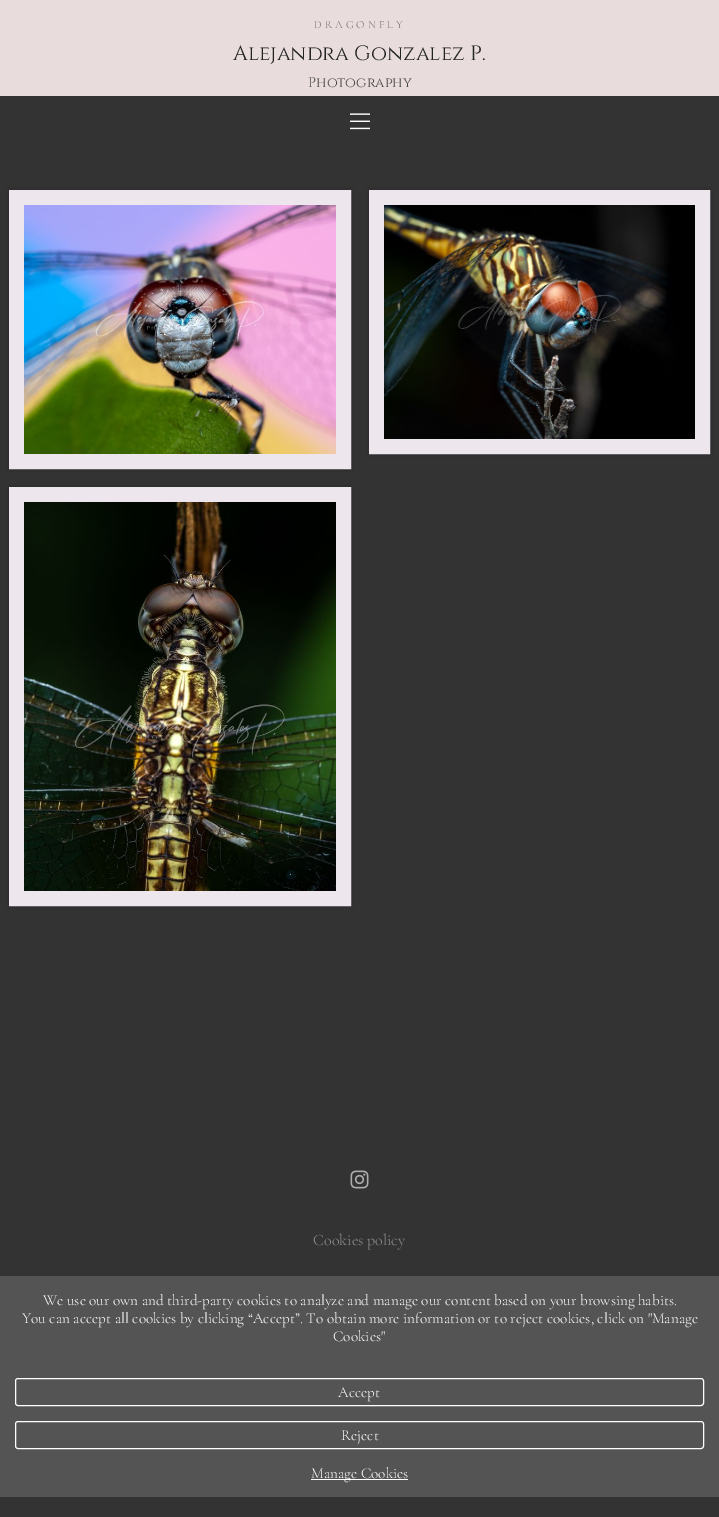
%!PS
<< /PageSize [719 1517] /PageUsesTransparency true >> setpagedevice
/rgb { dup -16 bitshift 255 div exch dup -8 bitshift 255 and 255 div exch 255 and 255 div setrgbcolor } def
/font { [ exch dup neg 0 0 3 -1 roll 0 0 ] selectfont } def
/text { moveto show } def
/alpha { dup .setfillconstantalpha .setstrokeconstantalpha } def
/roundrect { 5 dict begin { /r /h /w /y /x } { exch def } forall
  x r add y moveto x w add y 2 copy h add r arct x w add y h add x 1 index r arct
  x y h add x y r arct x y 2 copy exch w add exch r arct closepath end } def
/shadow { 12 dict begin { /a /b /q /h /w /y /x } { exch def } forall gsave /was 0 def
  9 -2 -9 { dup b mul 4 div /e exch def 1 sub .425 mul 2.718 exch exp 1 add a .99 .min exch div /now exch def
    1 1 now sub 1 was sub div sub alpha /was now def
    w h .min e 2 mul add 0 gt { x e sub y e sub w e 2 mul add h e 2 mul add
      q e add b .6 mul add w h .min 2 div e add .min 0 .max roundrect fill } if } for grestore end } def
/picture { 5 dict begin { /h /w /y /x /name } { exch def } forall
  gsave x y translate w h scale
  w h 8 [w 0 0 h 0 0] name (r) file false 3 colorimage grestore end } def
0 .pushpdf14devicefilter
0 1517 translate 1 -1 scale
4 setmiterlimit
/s1 { /Cinzel-Regular 20.75 font 16#222222 rgb } def
/s2 { /Cinzel-Regular 14 font 16#4A4747 rgb } def
/s3 { /CormorantGaramond-Light 16 font 16#8F8F8F rgb } def
/s4 { /CormorantGaramond-Light 15.2 font 16#FFFFFF rgb } def
16#333333 rgb
0 0 719 1517 rectfill
16#E8DCDC rgb
0 0 719 96 rectfill
/CormorantGaramond-Light 11 font
16#716C6C rgb
314 28 moveto 3 0 (DRAGONFLY) ashow
s1
(Alejandra Gonzalez P.) 233 60 text
s2
(Photography) 308 87 text
(pic1.raw) 350 113 20 17 picture
16#000000 rgb
9 190 342 279 0 3.5 0.2 shadow
16#EDE6EC rgb
15 setlinewidth
16.5 197.5 327 264 rectstroke
(pic2.raw) 24 205 312 249 picture
16#000000 rgb
369 190 341 264 0 3.5 0.2 shadow
16#EDE6EC rgb
376.5 197.5 326 249 rectstroke
(pic3.raw) 384 205 311 234 picture
16#000000 rgb
9 487 342 419 0 3.5 0.2 shadow
16#EDE6EC rgb
16.5 494.5 327 404 rectstroke
(pic4.raw) 24 502 312 389 picture
(pic5.raw) 350 1170 19 19 picture
s3
(Cookies policy) 313 1245 text
16#545454 rgb
0 1276 719 221 rectfill
s4
(We use our own and third-party cookies to analyze and manage our content based on your browsing habits.) 43 1305 text
(You can accept all cookies by clicking “Accept”. To obtain more information or to reject cookies, click on "Manage) 22 1323 text
(Cookies") 333 1341 text
1 setlinewidth
15.5 1378.5 688 27 2.5 roundrect stroke
(Accept) 338 1397 text
15.5 1421.5 688 27 2.5 roundrect stroke
(Reject) 341 1440 text
311 1479 97 1 rectfill
(Manage Cookies) 311 1478 text
.poppdf14devicefilter showpage
